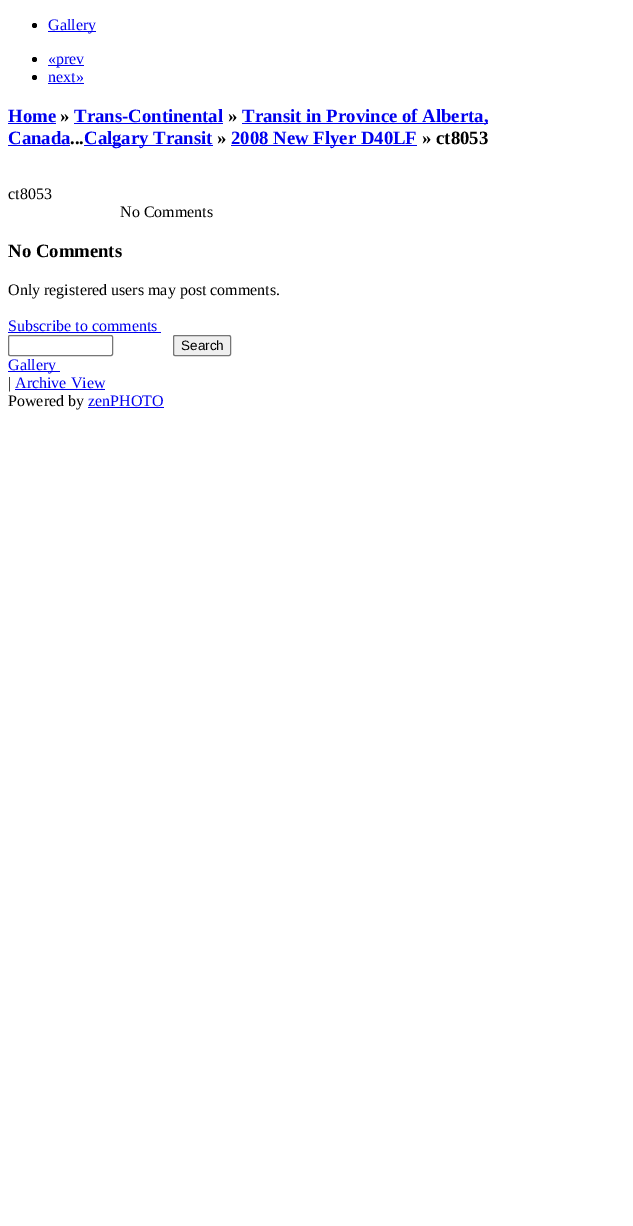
%!PS
<< /PageSize [633 1226] >> setpagedevice
/rgb { dup -16 bitshift 255 div exch dup -8 bitshift 255 and 255 div exch 255 and 255 div setrgbcolor } def
/font { [ exch dup neg 0 0 3 -1 roll 0 0 ] selectfont } def
/text { moveto show } def
/circle { newpath 0 360 arc closepath } def
/roundrect { 5 dict begin { /r /h /w /y /x } { exch def } forall
  x r add y moveto x w add y 2 copy h add r arct x w add y h add x 1 index r arct
  x y h add x y r arct x y 2 copy exch w add exch r arct closepath end } def
0 1226 translate 1 -1 scale
4 setmiterlimit
/s1 { /LiberationSerif-Regular 16 font 16#0000EE rgb } def
/s2 { /LiberationSerif-Bold 18.75 font 16#0000EE rgb } def
/s3 { /LiberationSerif-Bold 18.75 font 16#000000 rgb } def
/s4 { /LiberationSerif-Regular 16 font 16#000000 rgb } def
/s5 { /LiberationSans-Regular 13.5 font 16#000000 rgb } def
16#FFFFFF rgb
0 0 633 1226 rectfill
16#000000 rgb
34.5 25.5 2.5 circle fill
16#0000EE rgb
48 31 48 1 rectfill
s1
(Gallery) 48 30 text
16#000000 rgb
34.5 59.5 2.5 circle fill
16#0000EE rgb
48 65 36 1 rectfill
(«prev) 48 64 text
16#000000 rgb
34.5 77.5 2.5 circle fill
s1
(next») 48 82 text
48 83 36 1 rectfill
s2
(Home) 8 122 text
8 123 48 1 rectfill
s3
(») 60 122 text
s2
(Trans-Continental) 74 122 text
74 123 149 1 rectfill
s3
(») 228 122 text
16#0000EE rgb
242 123 246 1 rectfill
(Transit in Province of Alberta,) 242 122 text
(Canada) 8 144 text
8 145 62 1 rectfill
s3
(...) 70 144 text
16#0000EE rgb
84 145 129 1 rectfill
(Calgary Transit) 84 144 text
s3
(») 217 144 text
16#0000EE rgb
231 145 186 1 rectfill
(2008 New Flyer D40LF) 231 144 text
s3
(» ct8053) 422 144 text
s4
(ct8053) 8 199 text
(No Comments) 120 217 text
s3
(No Comments) 8 257 text
s4
(Only registered users may post comments.) 8 295 text
s1
(Subscribe to comments) 8 331 text
8 332 153 1 rectfill
16#767676 rgb
8.5 335.5 104 20 1.5 roundrect stroke
16#EFEFEF rgb
173.5 335.5 57 20 1.5 roundrect gsave fill grestore
16#767676 rgb
stroke
s5
(Search) 181 350 text
16#0000EE rgb
8 371 52 1 rectfill
s1
(Gallery) 8 370 text
s4
(|) 8 388 text
s1
(Archive View) 15 388 text
15 389 90 1 rectfill
s4
(Powered by) 8 406 text
s1
(zenPHOTO) 88 406 text
88 407 76 1 rectfill
showpage
